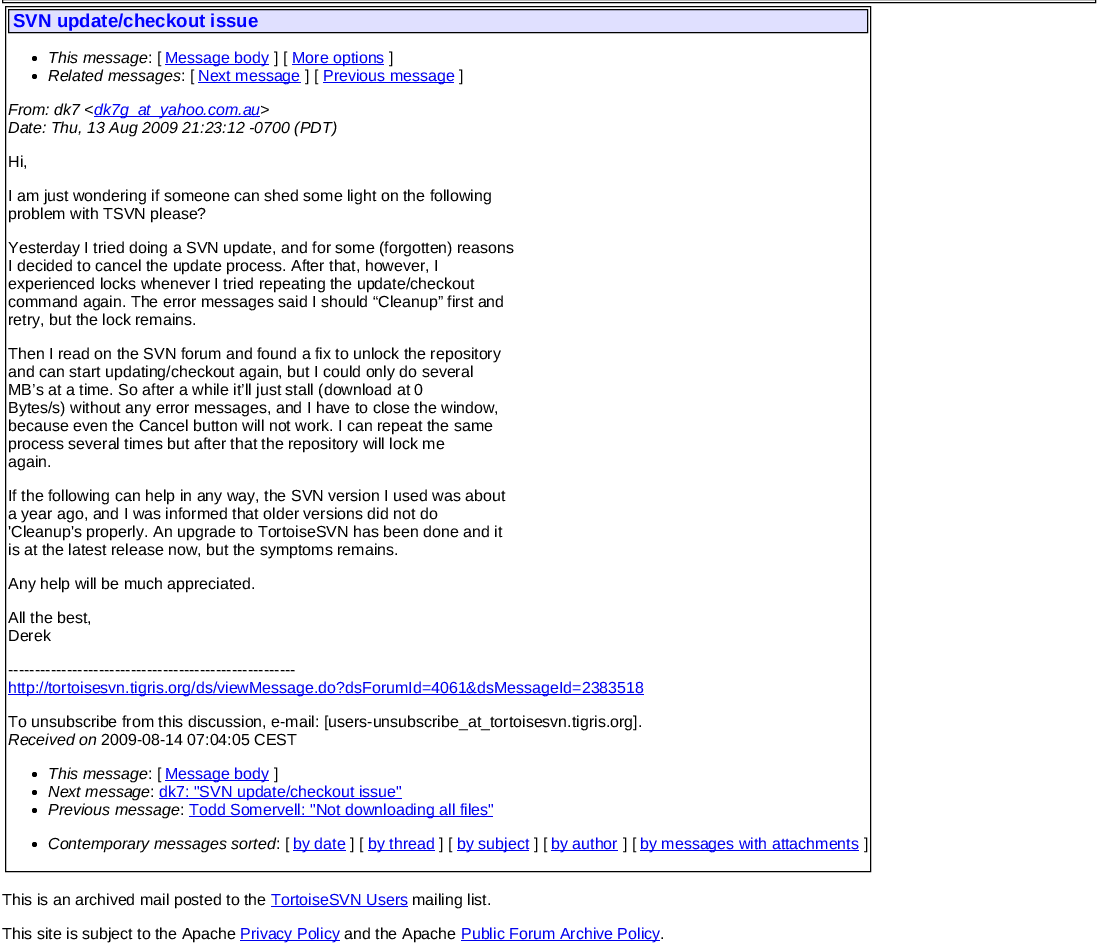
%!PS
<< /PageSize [1098 948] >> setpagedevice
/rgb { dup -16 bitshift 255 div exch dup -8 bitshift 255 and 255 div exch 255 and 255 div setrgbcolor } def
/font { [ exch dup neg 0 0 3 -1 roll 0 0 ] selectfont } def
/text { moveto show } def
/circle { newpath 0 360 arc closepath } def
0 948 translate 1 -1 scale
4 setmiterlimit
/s1 { /LiberationSans-Bold 18.7 font 16#0000FF rgb } def
/s2 { /LiberationSans-Italic 16 font 16#000000 rgb } def
/s3 { /LiberationSans-Regular 16 font 16#000000 rgb } def
/s4 { /LiberationSans-Regular 16 font 16#0000EE rgb } def
/s5 { /LiberationSans-Italic 16 font 16#0000EE rgb } def
16#FFFFFF rgb
0 0 1098 948 rectfill
16#000000 rgb
2.5 -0.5 1093 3 rectstroke
5.5 6.5 865 865 rectstroke
16#E0E0FF rgb
8.5 9.5 moveto 867.5 9.5 lineto 867.5 32.5 lineto 8.5 32.5 lineto closepath gsave fill grestore
16#000000 rgb
stroke
s1
(SVN update/checkout issue) 13 27 text
16#000000 rgb
34.5 58.5 2.5 circle fill
s2
(This message) 48 63 text
s3
(: [) 148 63 text
16#0000EE rgb
165 64 104 1 rectfill
(Message body) 165 63 text
s3
(] [) 274 63 text
16#0000EE rgb
292 64 92 1 rectfill
(More options) 292 63 text
s3
(]) 389 63 text
34.5 76.5 2.5 circle fill
s2
(Related messages) 48 81 text
s3
(: [) 181 81 text
16#0000EE rgb
198 82 103 1 rectfill
(Next message) 198 81 text
s3
(] [) 305 81 text
16#0000EE rgb
323 82 131 1 rectfill
(Previous message) 323 81 text
s3
(]) 459 81 text
s2
(From: dk7 <) 8 115 text
16#0000EE rgb
94 116 166 1 rectfill
(dk7g_at_yahoo.com.au) 94 115 text
s2
(>) 260 115 text
(Date: Thu, 13 Aug 2009 21:23:12 -0700 \(PDT\)) 8 133 text
s3
(Hi,) 8 167 text
(I am just wondering if someone can shed some light on the following) 8 201 text
(problem with TSVN please?) 8 219 text
(Yesterday I tried doing a SVN update, and for some \(forgotten\) reasons) 8 253 text
(I decided to cancel the update process. After that, however, I) 8 271 text
(experienced locks whenever I tried repeating the update/checkout) 8 289 text
(command again. The error messages said I should “Cleanup” first and) 8 307 text
(retry, but the lock remains.) 8 325 text
(Then I read on the SVN forum and found a fix to unlock the repository) 8 359 text
(and can start updating/checkout again, but I could only do several) 8 377 text
(MB’s at a time. So after a while it’ll just stall \(download at 0) 8 395 text
(Bytes/s\) without any error messages, and I have to close the window,) 8 413 text
(because even the Cancel button will not work. I can repeat the same) 8 431 text
(process several times but after that the repository will lock me) 8 449 text
(again.) 8 467 text
(If the following can help in any way, the SVN version I used was about) 8 501 text
(a year ago, and I was informed that older versions did not do) 8 519 text
('Cleanup's properly. An upgrade to TortoiseSVN has been done and it) 8 537 text
(is at the latest release now, but the symptoms remains.) 8 555 text
(Any help will be much appreciated.) 8 589 text
(All the best,) 8 623 text
(Derek) 8 641 text
(------------------------------------------------------) 8 675 text
16#0000EE rgb
8 694 636 1 rectfill
(http://tortoisesvn.tigris.org/ds/viewMessage.do?dsForumId=4061&dsMessageId=2383518) 8 693 text
s3
(To unsubscribe from this discussion, e-mail: [users-unsubscribe_at_tortoisesvn.tigris.org].) 8 727 text
s2
(Received on) 8 745 text
s3
(2009-08-14 07:04:05 CEST) 101 745 text
34.5 774.5 2.5 circle fill
s2
(This message) 48 779 text
s3
(: [) 148 779 text
16#0000EE rgb
165 780 104 1 rectfill
(Message body) 165 779 text
s3
(]) 274 779 text
34.5 792.5 2.5 circle fill
s2
(Next message) 48 797 text
s3
(:) 150 797 text
16#0000EE rgb
159 798 243 1 rectfill
(dk7: "SVN update/checkout issue") 159 797 text
16#000000 rgb
34.5 810.5 2.5 circle fill
s2
(Previous message) 48 815 text
s3
(:) 180 815 text
16#0000EE rgb
189 816 304 1 rectfill
(Todd Somervell: "Not downloading all files") 189 815 text
16#000000 rgb
34.5 844.5 2.5 circle fill
s2
(Contemporary messages sorted) 48 849 text
s3
(: [) 276 849 text
16#0000EE rgb
293 850 53 1 rectfill
(by date) 293 849 text
s3
(] [) 350 849 text
16#0000EE rgb
368 850 67 1 rectfill
(by thread) 368 849 text
s3
(] [) 439 849 text
16#0000EE rgb
457 850 72 1 rectfill
(by subject) 457 849 text
s3
(] [) 534 849 text
16#0000EE rgb
551 850 67 1 rectfill
(by author) 551 849 text
s3
(] [) 623 849 text
16#0000EE rgb
640 850 219 1 rectfill
(by messages with attachments) 640 849 text
s3
(]) 864 849 text
(This is an archived mail posted to the) 2 905 text
s4
(TortoiseSVN Users) 271 905 text
271 906 137 1 rectfill
s3
(mailing list.) 412 905 text
(This site is subject to the Apache) 2 939 text
16#0000EE rgb
240 940 100 1 rectfill
(Privacy Policy) 240 939 text
s3
(and the Apache) 344 939 text
16#0000EE rgb
461 940 199 1 rectfill
(Public Forum Archive Policy) 461 939 text
s3
(.) 660 939 text
showpage
